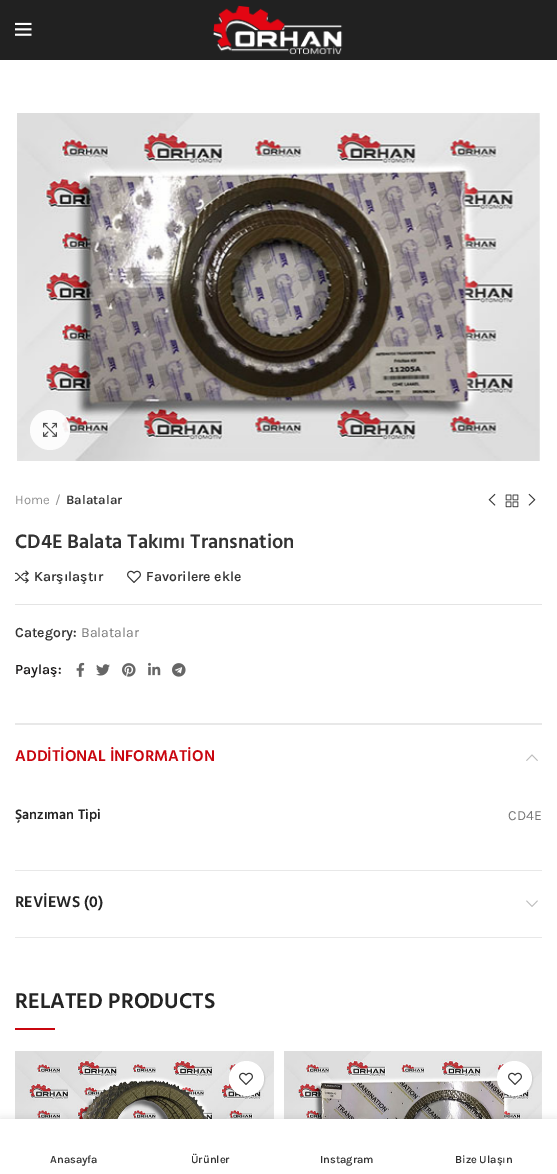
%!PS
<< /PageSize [557 1174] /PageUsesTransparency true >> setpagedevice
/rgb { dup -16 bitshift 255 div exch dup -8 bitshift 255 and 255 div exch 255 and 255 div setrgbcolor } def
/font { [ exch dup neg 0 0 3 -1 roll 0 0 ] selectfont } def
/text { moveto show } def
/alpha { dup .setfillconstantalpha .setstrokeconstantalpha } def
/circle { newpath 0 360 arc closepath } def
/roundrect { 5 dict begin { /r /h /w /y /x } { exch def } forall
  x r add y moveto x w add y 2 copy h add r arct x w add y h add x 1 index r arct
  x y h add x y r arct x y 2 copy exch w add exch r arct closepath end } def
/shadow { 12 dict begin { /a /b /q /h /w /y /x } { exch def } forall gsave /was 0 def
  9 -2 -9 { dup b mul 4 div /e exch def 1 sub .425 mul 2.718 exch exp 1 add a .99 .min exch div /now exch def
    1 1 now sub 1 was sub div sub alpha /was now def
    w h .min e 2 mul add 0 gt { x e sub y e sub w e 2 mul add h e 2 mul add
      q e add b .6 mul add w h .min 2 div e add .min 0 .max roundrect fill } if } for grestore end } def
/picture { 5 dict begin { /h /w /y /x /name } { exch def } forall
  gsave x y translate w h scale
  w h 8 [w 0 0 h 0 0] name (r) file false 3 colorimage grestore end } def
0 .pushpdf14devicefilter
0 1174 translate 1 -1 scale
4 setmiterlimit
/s1 { /Karla-Regular 13 font 16#8E8E8E rgb } def
/s2 { /Karla-SemiBold 13 font 16#333333 rgb } def
/s3 { /Hind-SemiBold 20 font 16#333333 rgb } def
/s4 { /Karla-SemiBold 14 font 16#333333 rgb } def
/s5 { /Karla-Regular 14 font 16#777777 rgb } def
/s6 { /Karla-SemiBold 14 font 16#1B1919 rgb } def
/s7 { /Hind-SemiBold 16 font 16#C9060F rgb } def
/s8 { /Hind-SemiBold 14 font 16#242424 rgb } def
/s9 { /Hind-SemiBold 16 font 16#242424 rgb } def
/s10 { /Hind-SemiBold 22 font 16#242424 rgb } def
/s11 { /Karla-SemiBold 11 font 16#333333 rgb } def
16#FFFFFF rgb
0 0 557 1174 rectfill
16#212121 rgb
0 0 557 60 rectfill
(pic1.raw) 15 22 17 14 picture
(pic2.raw) 213 5 130 50 picture
(pic3.raw) 17 113 523 348 picture
0.9 alpha
16#FFFFFF rgb
50 430 20 circle fill
1 alpha
(pic4.raw) 43 422 14 15 picture
s1
(Home) 15 504 text
(/) 55 504 text
s2
(Balatalar) 66 504 text
(pic5.raw) 488 493 8 13 picture
(pic6.raw) 505 494 14 14 picture
(pic7.raw) 528 493 8 13 picture
s3
(CD4E Balata Takımı Transnation) 15 548 text
(pic8.raw) 15 570 14 14 picture
s4
(Karşılaştır) 34 581 text
(pic9.raw) 127 570 14 13 picture
(Favorilere ekle) 146 581 text
16#E4E4E4 rgb
15 604 527 1 rectfill
s4
(Category:) 15 637 text
s5
(Balatalar) 81 637 text
s6
(Paylaş:) 15 674 text
(pic10.raw) 76 662 9 15 picture
(pic11.raw) 96 664 14 12 picture
(pic12.raw) 122 663 14 14 picture
(pic13.raw) 148 662 13 14 picture
(pic14.raw) 172 663 14 14 picture
16#E8E8E8 rgb
15 723 527 2 rectfill
15 870 527 1 rectfill
s7
(ADDİTİONAL İNFORMATİON) 15 761 text
(pic15.raw) 526 754 12 7 picture
s8
(Şanzıman Tipi) 15 819 text
s5
(CD4E) 508 820 text
16#E8E8E8 rgb
15 937 527 1 rectfill
s9
(REVİEWS \(0\)) 15 907 text
(pic16.raw) 526 900 12 7 picture
s10
(RELATED PRODUCTS) 15 1008 text
16#C9060F rgb
15 1028 40 2 rectfill
(pic17.raw) 15 1051 259 68 picture
16#000000 rgb
230 1062 35 35 17.5 0.5 0.1 shadow
16#FFFFFF rgb
246.5 1078.5 17.5 circle fill
(pic9.raw) 239 1072 14 13 picture
(pic18.raw) 284 1051 258 68 picture
16#000000 rgb
498 1062 35 35 17.5 0.5 0.1 shadow
16#FFFFFF rgb
514.5 1078.5 17.5 circle fill
(pic9.raw) 508 1072 14 13 picture
16#000000 rgb
0 1119 557 55 0 4.5 0.12 shadow
16#FFFFFF rgb
0 1119 557 55 rectfill
s11
(Anasayfa) 50 1163 text
(Ürünler) 191 1163 text
(Instagram) 320 1163 text
(Bize Ulaşın) 455 1163 text
.poppdf14devicefilter showpage
